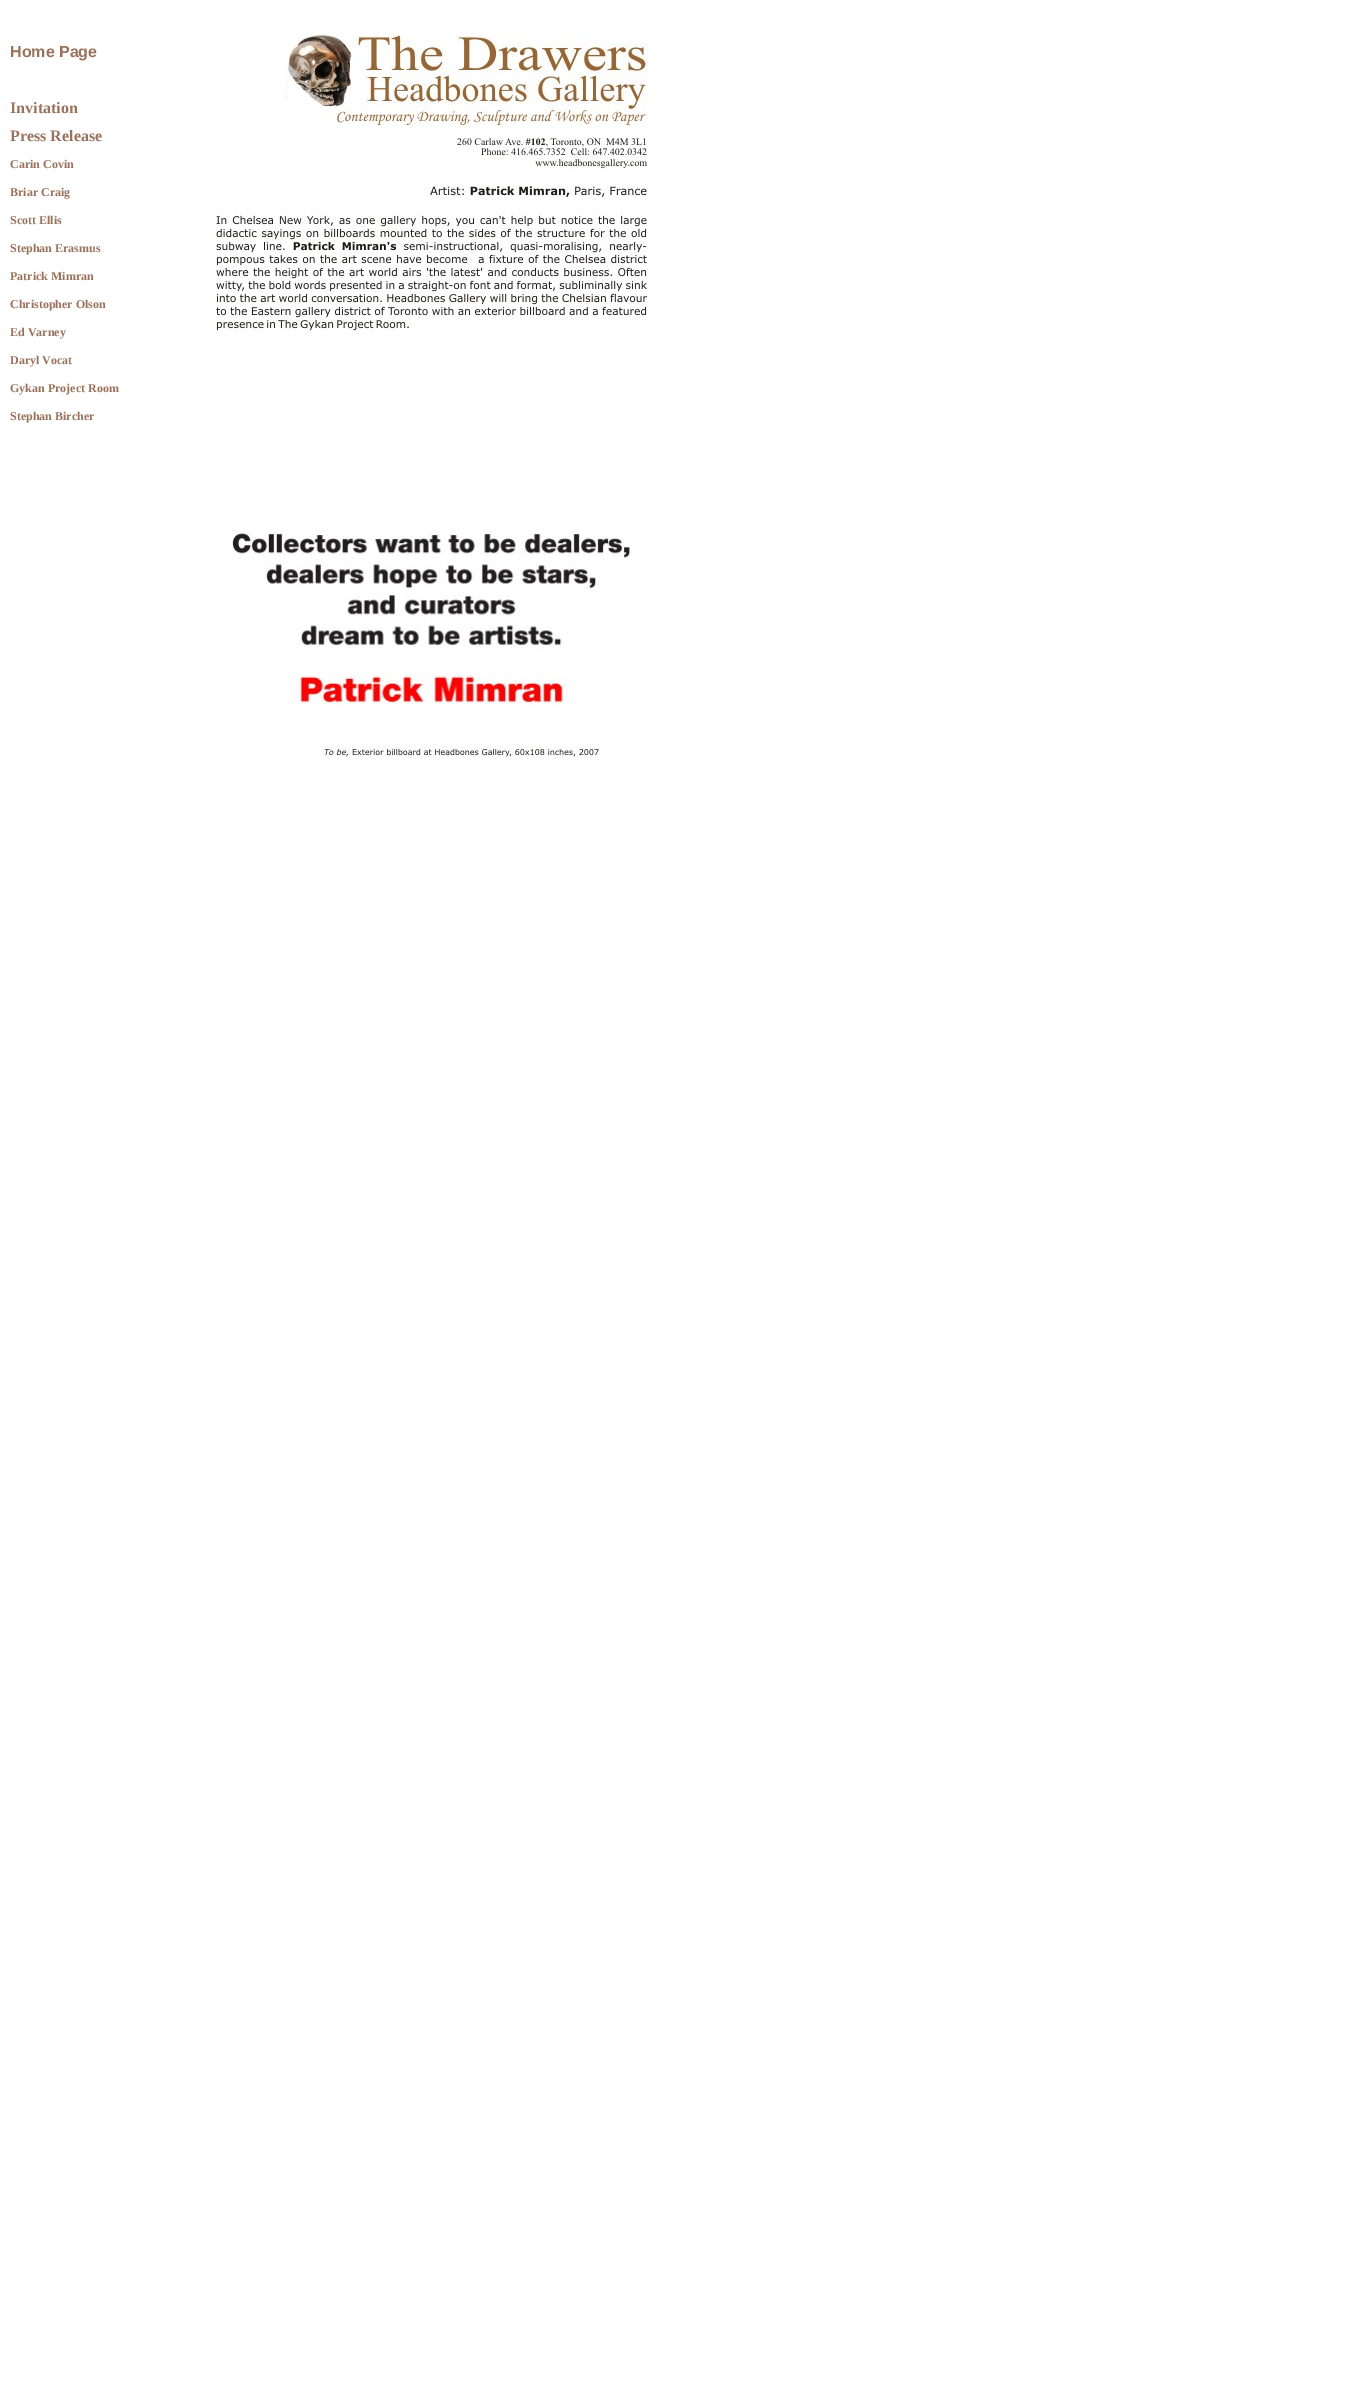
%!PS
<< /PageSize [1362 2386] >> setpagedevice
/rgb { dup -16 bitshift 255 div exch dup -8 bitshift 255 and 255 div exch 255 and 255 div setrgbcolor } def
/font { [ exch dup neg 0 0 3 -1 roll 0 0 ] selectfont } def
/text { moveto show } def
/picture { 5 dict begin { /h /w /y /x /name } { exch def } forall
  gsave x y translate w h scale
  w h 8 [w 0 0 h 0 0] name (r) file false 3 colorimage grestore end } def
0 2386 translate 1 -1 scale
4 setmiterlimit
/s1 { /LiberationSans-Bold 16 font 16#99715C rgb } def
/s2 { /LiberationSerif-Bold 16 font 16#99715C rgb } def
/s3 { /LiberationSerif-Bold 12 font 16#99715C rgb } def
16#FFFFFF rgb
0 0 1362 2386 rectfill
s1
(Home Page) 10 57 text
s2
(Invitation) 10 113 text
(Press Release) 10 141 text
s3
(Carin Covin) 10 168 text
(Briar Craig) 10 196 text
(Scott Ellis) 10 224 text
(Stephan Erasmus) 10 252 text
(Patrick Mimran) 10 280 text
(Christopher Olson) 10 308 text
(Ed Varney) 10 336 text
(Daryl Vocat) 10 364 text
(Gykan Project Room) 10 392 text
(Stephan Bircher) 10 420 text
(pic1.raw) 216 34 433 723 picture
showpage
